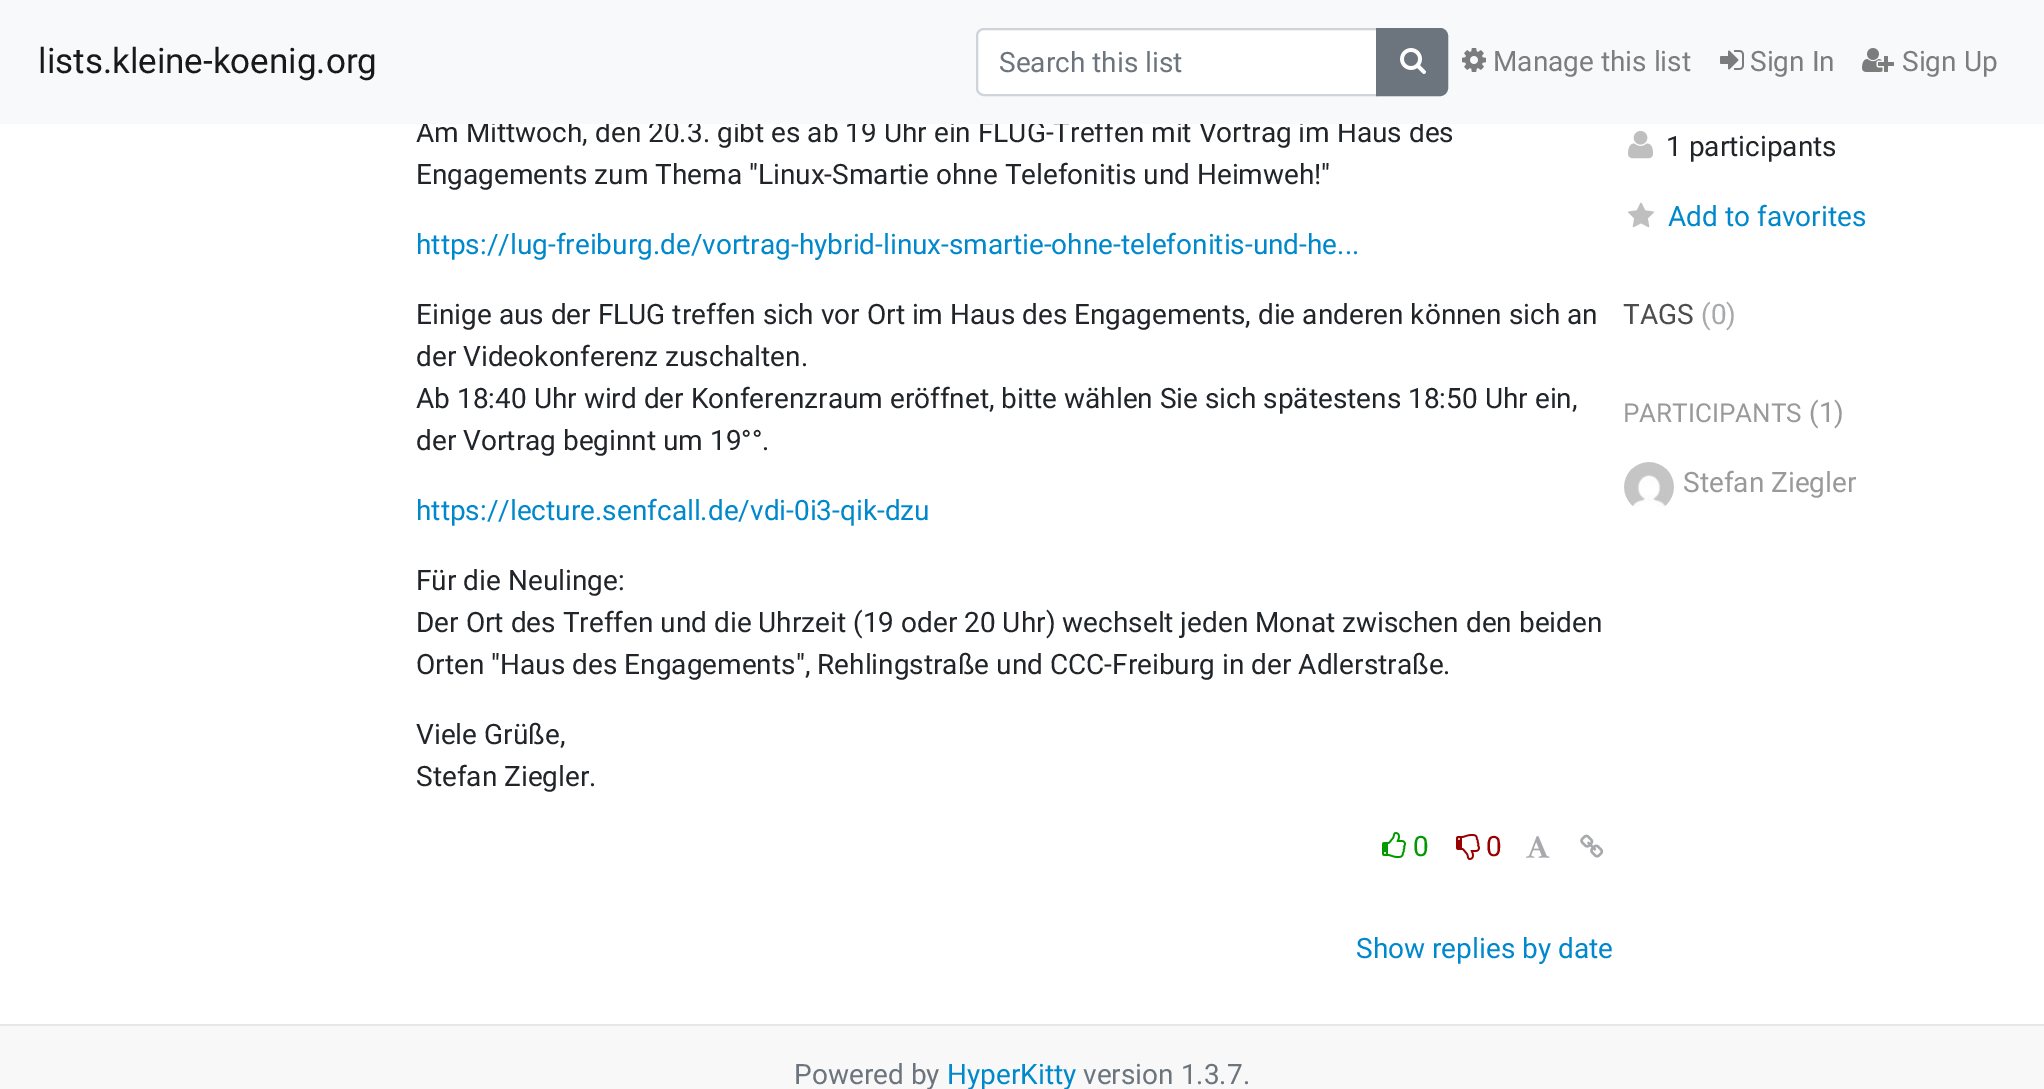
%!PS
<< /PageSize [2044 1089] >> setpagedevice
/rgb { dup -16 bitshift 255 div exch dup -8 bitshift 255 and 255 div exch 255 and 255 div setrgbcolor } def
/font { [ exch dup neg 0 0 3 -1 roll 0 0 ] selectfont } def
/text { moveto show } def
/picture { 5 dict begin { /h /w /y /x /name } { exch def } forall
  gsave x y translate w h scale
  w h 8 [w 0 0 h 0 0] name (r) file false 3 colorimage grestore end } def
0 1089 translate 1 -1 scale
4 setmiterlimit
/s1 { /Roboto-Regular 28 font 16#212529 rgb } def
/s2 { /Roboto-Regular 35 font 16#191919 rgb } def
/s3 { /Roboto-Regular 28 font 16#6C757D rgb } def
/s4 { /Roboto-Regular 28 font 16#7C7D7D rgb } def
/s5 { /Roboto-Regular 28 font 16#0088CC rgb } def
/s6 { /Roboto-Regular 28 font 16#009900 rgb } def
/s7 { /Roboto-Regular 28 font 16#990000 rgb } def
/s8 { /Roboto-Regular 28 font 16#4D4D4D rgb } def
/s9 { /Roboto-Regular 28 font 16#A7A9AC rgb } def
/s10 { /Roboto-Regular 26 font 16#999999 rgb } def
/s11 { /Roboto-Regular 28 font 16#999999 rgb } def
16#FFFFFF rgb
0 0 2044 1089 rectfill
s1
(Am Mittwoch, den 20.3. gibt es ab 19 Uhr ein FLUG-Treffen mit Vortrag im Haus des) 416 142 text
16#F8F9FA rgb
0 0 2044 124 rectfill
s2
(lists.kleine-koenig.org) 38 73 text
16#FFFFFF rgb
983 30 moveto 1376 30 lineto 1376 94 lineto 983 94 lineto 980 94 978 92 978 89 curveto 978 35 lineto 978 32 980 30 983 30 curveto closepath fill
16#CED4DA rgb
2 setlinewidth
984 29 moveto 1377 29 lineto 1377 95 lineto 984 95 lineto 980 95 977 92 977 88 curveto 977 36 lineto 977 32 980 29 984 29 curveto closepath stroke
s3
(Search this list) 999 72 text
1377 29 moveto 1440 29 lineto 1444 29 1447 32 1447 36 curveto 1447 88 lineto 1447 92 1444 95 1440 95 curveto 1377 95 lineto closepath gsave fill grestore
stroke
(pic1.raw) 1400 48 26 26 picture
(pic2.raw) 1462 48 24 24 picture
s4
(Manage this list) 1493 71 text
(pic3.raw) 1720 50 24 20 picture
(Sign In) 1750 71 text
(pic4.raw) 1862 48 32 24 picture
(Sign Up) 1902 71 text
s1
(Engagements zum Thema "Linux-Smartie ohne Telefonitis und Heimweh!") 416 184 text
s5
(https://lug-freiburg.de/vortrag-hybrid-linux-smartie-ohne-telefonitis-und-he...) 416 254 text
s1
(Einige aus der FLUG treffen sich vor Ort im Haus des Engagements, die anderen können sich an) 416 324 text
(der Videokonferenz zuschalten.) 416 366 text
(Ab 18:40 Uhr wird der Konferenzraum eröffnet, bitte wählen Sie sich spätestens 18:50 Uhr ein,) 416 408 text
(der Vortrag beginnt um 19°°.) 416 450 text
s5
(https://lecture.senfcall.de/vdi-0i3-qik-dzu) 416 520 text
s1
(Für die Neulinge:) 416 590 text
(Der Ort des Treffen und die Uhrzeit \(19 oder 20 Uhr\) wechselt jeden Monat zwischen den beiden) 416 632 text
(Orten "Haus des Engagements", Rehlingstraße und CCC-Freiburg in der Adlerstraße.) 416 674 text
(Viele Grüße,) 416 744 text
(Stefan Ziegler.) 416 786 text
(pic5.raw) 1382 832 24 26 picture
s6
(0) 1413 856 text
(pic6.raw) 1456 834 24 26 picture
s7
(0) 1486 856 text
(pic7.raw) 1526 836 24 22 picture
(pic8.raw) 1580 834 24 24 picture
s5
(Show replies by date) 1356 958 text
(pic9.raw) 1628 130 26 29 picture
s1
(1 participants) 1666 156 text
(pic10.raw) 1628 202 26 26 picture
s5
(Add to favorites) 1668 226 text
s8
(TAGS) 1623 324 text
s9
(\(0\)) 1701 324 text
s10
(PARTICIPANTS) 1623 422 text
s11
(\(1\)) 1809 422 text
(pic11.raw) 1624 462 50 45 picture
(Stefan Ziegler) 1683 492 text
16#F8F8F8 rgb
0 1026 2044 63 rectfill
16#E7E7E7 rgb
0 1024 2044 2 rectfill
s3
(Powered by) 794 1084 text
s5
(HyperKitty) 947 1084 text
s3
(version 1.3.7.) 1083 1084 text
showpage
